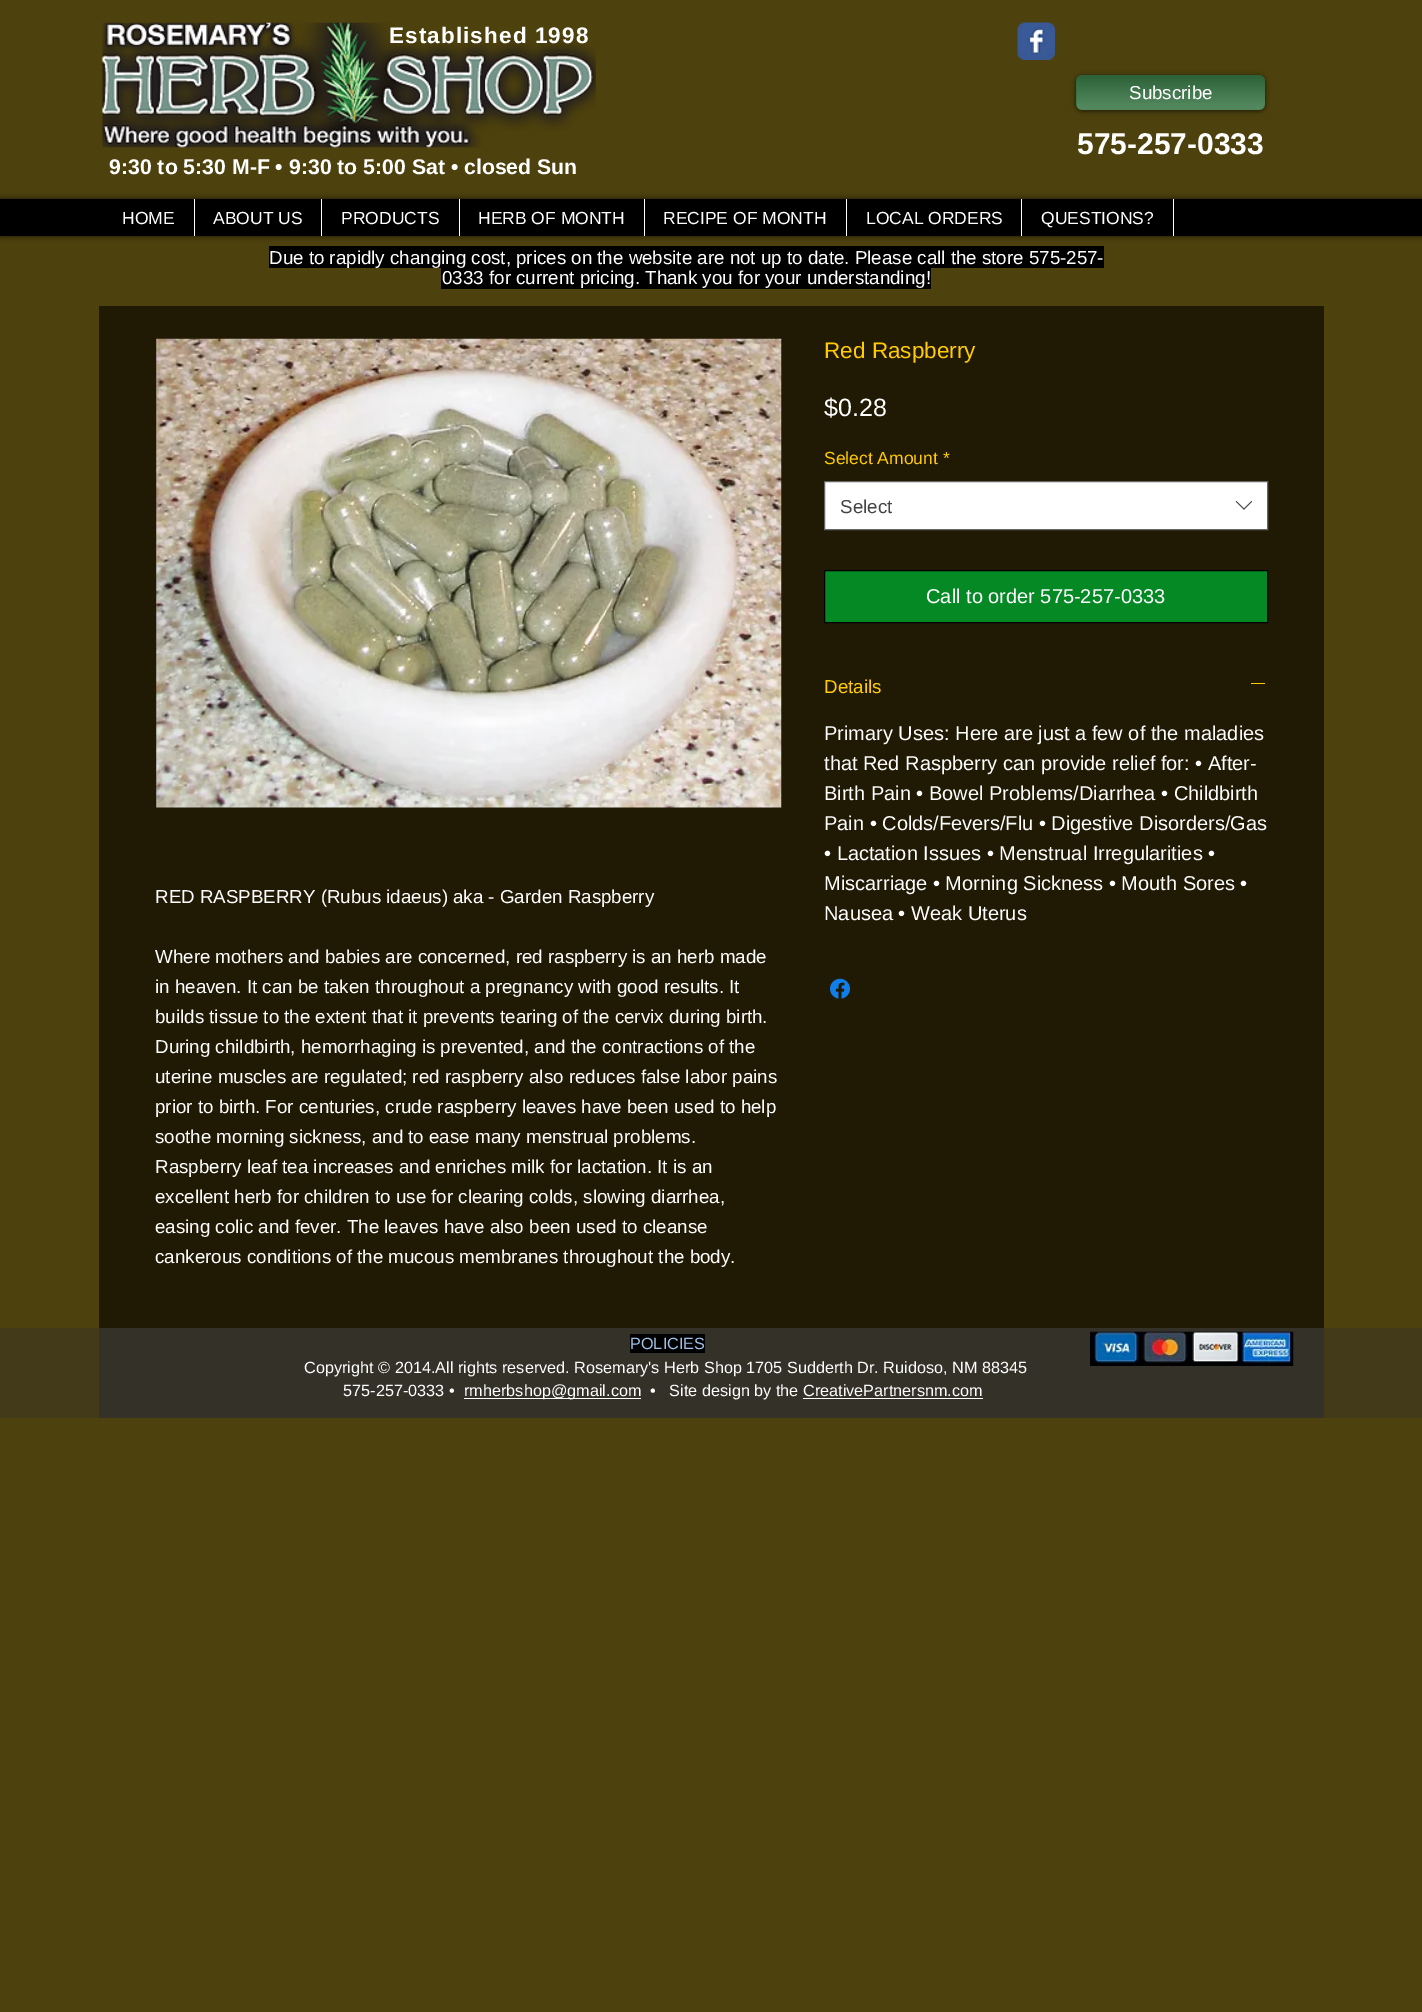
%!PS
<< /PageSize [1422 2012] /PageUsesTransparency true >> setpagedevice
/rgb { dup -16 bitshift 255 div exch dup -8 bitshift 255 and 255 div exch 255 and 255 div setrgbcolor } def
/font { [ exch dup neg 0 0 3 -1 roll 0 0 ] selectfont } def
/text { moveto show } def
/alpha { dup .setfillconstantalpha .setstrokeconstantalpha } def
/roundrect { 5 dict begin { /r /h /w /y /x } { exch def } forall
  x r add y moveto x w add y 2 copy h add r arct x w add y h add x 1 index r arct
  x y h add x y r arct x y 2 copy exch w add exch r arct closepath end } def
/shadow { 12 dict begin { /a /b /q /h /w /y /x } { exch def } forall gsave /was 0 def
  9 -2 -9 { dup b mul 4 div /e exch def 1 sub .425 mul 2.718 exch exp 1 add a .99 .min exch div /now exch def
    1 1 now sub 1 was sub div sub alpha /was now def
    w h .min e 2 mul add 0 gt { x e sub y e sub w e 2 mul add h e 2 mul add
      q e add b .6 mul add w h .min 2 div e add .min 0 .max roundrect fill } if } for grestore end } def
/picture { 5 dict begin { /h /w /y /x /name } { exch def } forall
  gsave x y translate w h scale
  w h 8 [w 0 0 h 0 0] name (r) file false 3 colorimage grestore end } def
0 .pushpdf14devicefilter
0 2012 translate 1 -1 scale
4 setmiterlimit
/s1 { /LiberationSans-Regular 18.75 font 16#FFFFFF rgb } def
/s2 { /LiberationSans-Bold 30 font 16#FFFFFF rgb } def
/s3 { /LiberationSans-Bold 21.25 font 16#FFFFFF rgb } def
/s4 { /LiberationSans-Regular 17.5 font 16#FFFFFF rgb } def
/s5 { /LiberationSans-Regular 22.5 font 16#FFCB05 rgb } def
/s6 { /LiberationSans-Regular 25 font 16#FFFFFF rgb } def
/s7 { /LiberationSans-Regular 17.5 font 16#FFCB05 rgb } def
/s8 { /LiberationSans-Regular 18.75 font 16#444444 rgb } def
/s9 { /LiberationSans-Regular 20 font 16#FFFFFF rgb } def
/s10 { /LiberationSans-Regular 18.75 font 16#FFCB05 rgb } def
/s11 { /LiberationSans-Regular 16.25 font 16#A0C2E8 rgb } def
/s12 { /LiberationSans-Regular 16.25 font 16#FFFFFF rgb } def
16#4D410D rgb
0 0 1422 2012 rectfill
(pic1.raw) 101 22 495 126 picture
(pic2.raw) 1017 22 38 38 picture
/LiberationSans-Bold 22.5 font
16#FFFFFF rgb
389 43 moveto 1.1 0 (Established 1998) ashow
16#000000 rgb
1076 76 189 35 6 2.5 0.6 shadow
16#2A6B37 rgb
1076 75 189 35 6 roundrect fill
(pic3.raw) 1076 75 189 28 picture
(pic4.raw) 1076 75 189 35 picture
s1
(Subscribe) 1129 99 text
s2
(575-257-0333) 1077 154 text
s3
(9:30 to 5:30 M-F • 9:30 to 5:00 Sat • closed Sun) 109 174 text
16#000000 rgb
0 199 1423 37 0 3 0.7 shadow
0 199 1422 37 rectfill
s4
(HOME) 122 224 text
194 199 1 37 rectfill
(ABOUT US) 213 224 text
321 199 1 37 rectfill
(PRODUCTS) 341 224 text
459 199 1 37 rectfill
(HERB OF MONTH) 478 224 text
644 199 1 37 rectfill
(RECIPE OF MONTH) 663 224 text
846 199 1 37 rectfill
(LOCAL ORDERS) 866 224 text
1021 199 1 37 rectfill
(QUESTIONS?) 1041 224 text
1173 199 1 37 rectfill
16#000000 rgb
269 246 835 22 rectfill
s1
(Due to rapidly changing cost, prices on the website are not up to date. Please call the store 575-257-) 269 264 text
16#000000 rgb
441 268 490 21 rectfill
s1
(0333 for current pricing. Thank you for your understanding!) 442 284 text
16#201A05 rgb
99 306 1225 1022 rectfill
s5
(Red Raspberry) 824 358 text
s6
($0.28) 824 416 text
s7
(Select Amount *) 824 464 text
16#FFFFFF rgb
824.5 481.5 moveto 1267.5 481.5 lineto 1267.5 529.5 lineto 824.5 529.5 lineto closepath gsave fill grestore
16#666666 rgb
stroke
s8
(Select) 840 513 text
(pic5.raw) 1235 500 18 10 picture
16#058924 rgb
824.5 570.5 moveto 1267.5 570.5 lineto 1267.5 622.5 lineto 824.5 622.5 lineto closepath gsave fill grestore
16#000000 rgb
stroke
s9
(Call to order 575-257-0333) 926 603 text
s10
(Details) 824 693 text
1251 683 14 1 rectfill
s9
(Primary Uses: Here are just a few of the maladies) 824 740 text
(that Red Raspberry can provide relief for: • After-) 824 770 text
(Birth Pain • Bowel Problems/Diarrhea • Childbirth) 824 800 text
(Pain • Colds/Fevers/Flu • Digestive Disorders/Gas) 824 830 text
(• Lactation Issues • Menstrual Irregularities •) 824 860 text
(Miscarriage • Morning Sickness • Mouth Sores •) 824 890 text
(Nausea • Weak Uterus) 824 920 text
(pic6.raw) 830 978 20 21 picture
(pic7.raw) 156 338 626 470 picture
s1
(RED RASPBERRY \(Rubus idaeus\) aka - Garden Raspberry) 155 903 text
(Where mothers and babies are concerned, red raspberry is an herb made) 155 963 text
(in heaven. It can be taken throughout a pregnancy with good results. It) 155 993 text
(builds tissue to the extent that it prevents tearing of the cervix during birth.) 155 1023 text
(During childbirth, hemorrhaging is prevented, and the contractions of the) 155 1053 text
(uterine muscles are regulated; red raspberry also reduces false labor pains) 155 1083 text
(prior to birth. For centuries, crude raspberry leaves have been used to help) 155 1113 text
(soothe morning sickness, and to ease many menstrual problems.) 155 1143 text
(Raspberry leaf tea increases and enriches milk for lactation. It is an) 155 1173 text
(excellent herb for children to use for clearing colds, slowing diarrhea,) 155 1203 text
(easing colic and fever. The leaves have also been used to cleanse) 155 1233 text
(cankerous conditions of the mucous membranes throughout the body.) 155 1263 text
16#433A19 rgb
0 1328 1422 90 rectfill
16#343129 rgb
99 1328 1225 90 rectfill
16#000000 rgb
630 1334 75 19 rectfill
s11
(POLICIES) 630 1349 text
s12
(Copyright © 2014.All rights reserved. Rosemary's Herb Shop 1705 Sudderth Dr. Ruidoso, NM 88345) 304 1373 text
(575-257-0333 •) 343 1396 text
464 1398 177 1 rectfill
(rmherbshop@gmail.com) 464 1396 text
(•   Site design by the CreativePartnersnm.com) 650 1396 text
803 1398 180 1 rectfill
(pic8.raw) 1090 1331 204 35 picture
.poppdf14devicefilter showpage
